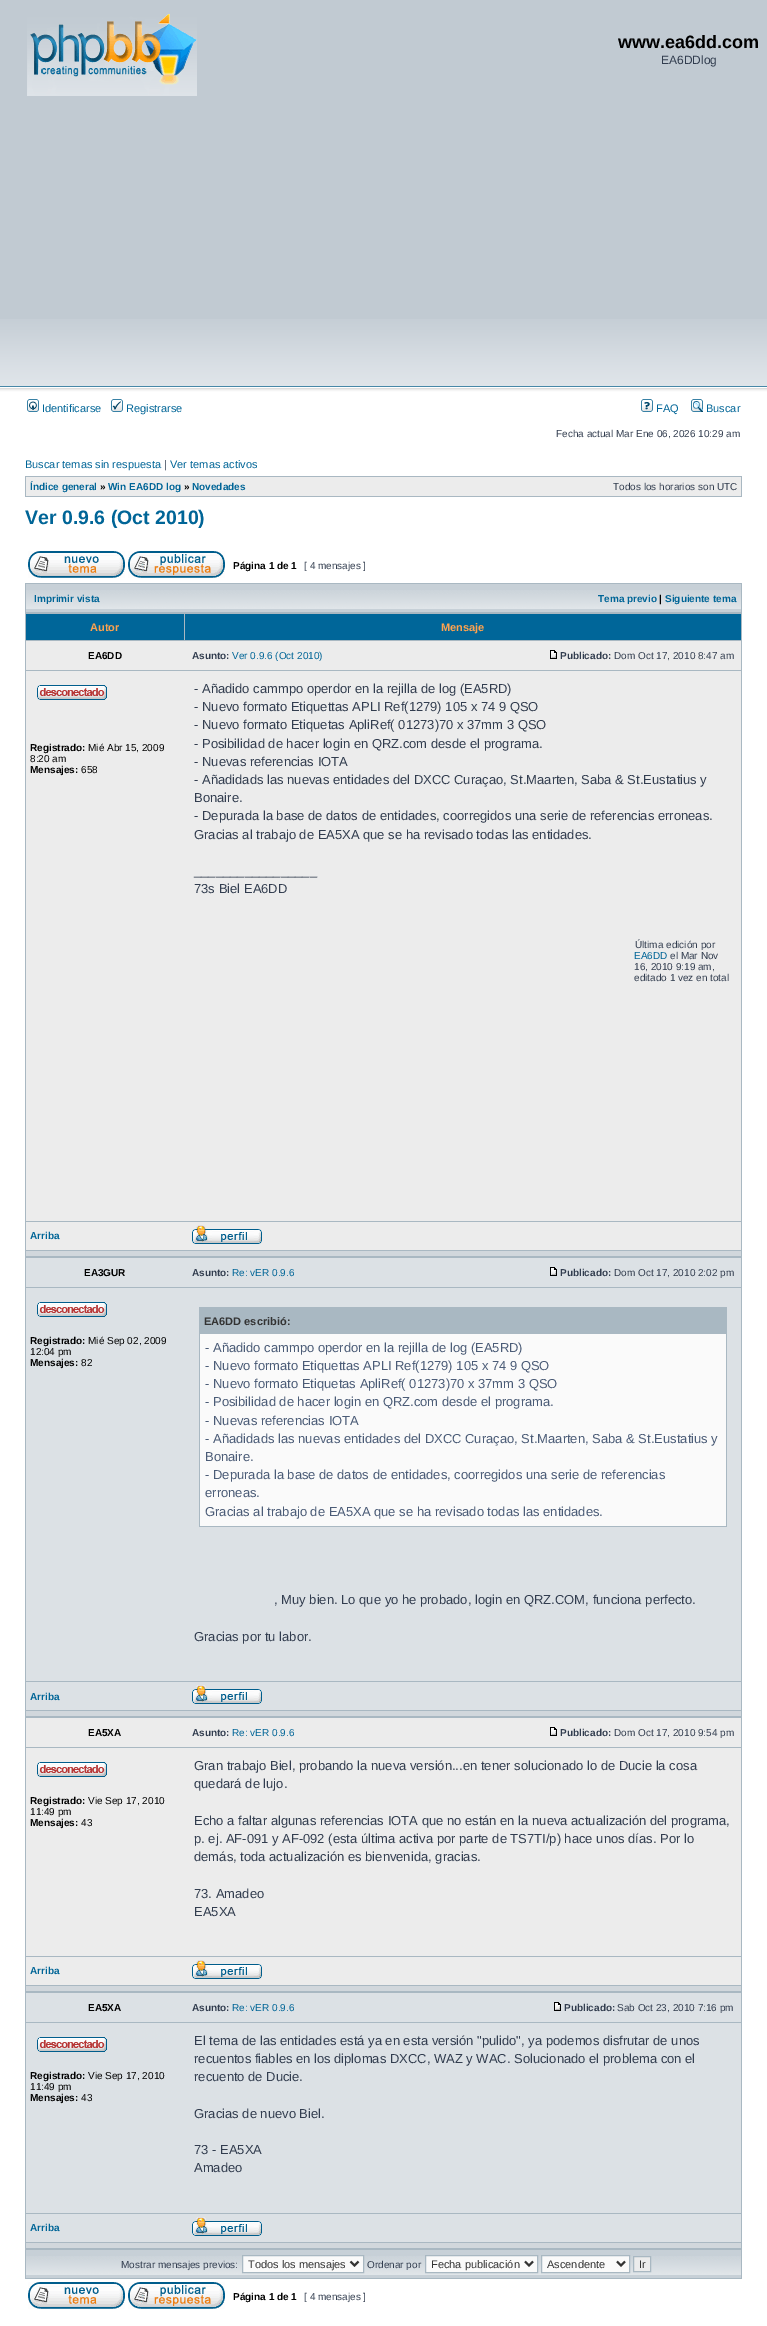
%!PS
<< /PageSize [767 2326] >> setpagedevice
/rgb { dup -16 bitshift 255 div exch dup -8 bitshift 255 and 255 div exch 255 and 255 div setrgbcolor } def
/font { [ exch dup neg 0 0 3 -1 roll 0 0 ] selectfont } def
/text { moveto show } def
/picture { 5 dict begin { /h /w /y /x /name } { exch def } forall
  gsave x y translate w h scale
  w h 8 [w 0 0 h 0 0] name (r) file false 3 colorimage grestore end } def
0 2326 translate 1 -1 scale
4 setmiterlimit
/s1 { /LiberationSans-Bold 18 font 16#000000 rgb } def
/s2 { /LiberationSans-Regular 12 font 16#323D4F rgb } def
/s3 { /LiberationSans-Regular 11 font 16#006597 rgb } def
/s4 { /LiberationSans-Regular 10 font 16#323D4F rgb } def
/s5 { /LiberationSans-Regular 11 font 16#323D4F rgb } def
/s6 { /LiberationSans-Bold 10 font 16#006597 rgb } def
/s7 { /LiberationSans-Bold 10 font 16#000000 rgb } def
/s8 { /LiberationSans-Bold 19.5 font 16#006597 rgb } def
/s9 { /LiberationSans-Bold 11 font 16#FFA34F rgb } def
/s10 { /LiberationSans-Bold 10 font 16#323D4F rgb } def
/s11 { /LiberationSans-Regular 10 font 16#006597 rgb } def
/s12 { /LiberationSans-Regular 10 font 16#000000 rgb } def
/s13 { /LiberationSans-Regular 13 font 16#323D4F rgb } def
/s14 { /LiberationSans-Bold 11 font 16#333333 rgb } def
/s15 { /LiberationSans-Regular 13 font 16#4B5C77 rgb } def
/s16 { /LiberationSans-Regular 11 font 16#333333 rgb } def
16#FFFFFF rgb
0 0 767 2326 rectfill
16#C1CAD2 rgb
0 0 767 319 rectfill
(pic1.raw) 0 319 767 78 picture
(pic2.raw) 27 14 170 82 picture
s1
(www.ea6dd.com) 618 48 text
s2
(EA6DDlog) 661 64 text
(pic3.raw) 27 399 12 13 picture
s3
(Identificarse) 42 412 text
(pic4.raw) 111 399 12 13 picture
(Registrarse) 126 412 text
(pic5.raw) 641 399 12 13 picture
(FAQ) 656 412 text
(pic6.raw) 691 399 12 13 picture
(Buscar) 706 412 text
s4
(Fecha actual Mar Ene 06, 2026 10:29 am) 556 437 text
s3
(Buscar temas sin respuesta) 25 468 text
s5
(|) 164 468 text
s3
(Ver temas activos) 170 468 text
16#A9B8C2 rgb
25 476 717 21 rectfill
16#ECECEC rgb
26 477 715 19 rectfill
s6
(Índice general) 30 490 text
s7
(») 100 490 text
s6
(Win EA6DD log) 108 490 text
s7
(») 184 490 text
s6
(Novedades) 192 490 text
s4
(Todos los horarios son UTC) 613 490 text
s8
(Ver 0.9.6 \(Oct 2010\)) 25 524 text
(pic7.raw) 28 551 97 27 picture
(pic8.raw) 128 551 97 27 picture
s7
(Página 1 de 1) 233 569 text
s4
([ 4 mensajes ]) 304 569 text
16#A9B8C2 rgb
25 583 717 1696 rectfill
16#C7D0D7 rgb
26 584 715 28 rectfill
(pic9.raw) 26 590 715 19 picture
s6
(Imprimir vista) 34 602 text
(Tema previo) 598 602 text
s7
(|) 659 602 text
s6
(Siguiente tema) 665 602 text
16#006699 rgb
26 614 158 26 rectfill
s9
(Autor) 90 631 text
16#006699 rgb
185 614 556 26 rectfill
s9
(Mensaje) 441 631 text
16#ECECEC rgb
26 641 715 29 rectfill
s7
(EA6DD) 88 659 text
s10
(Asunto:) 192 659 text
s11
(Ver 0.9.6 \(Oct 2010\)) 232 659 text
(pic10.raw) 550 650 7 9 picture
s10
(Publicado:) 560 659 text
s4
(Dom Oct 17, 2010 8:47 am) 614 659 text
16#ECECEC rgb
26 671 715 550 rectfill
(pic11.raw) 37 685 70 15 picture
s7
(Registrado:) 30 751 text
s12
(Mié Abr 15, 2009) 88 751 text
(8:20 am) 30 762 text
s7
(Mensajes:) 30 773 text
s12
(658) 81 773 text
s13
(- Añadido cammpo operdor en la rejilla de log \(EA5RD\)) 194 693 text
(- Nuevo formato Etiquettas APLI Ref\(1279\) 105 x 74 9 QSO) 194 711 text
(- Nuevo formato Etiquetas ApliRef\( 01273\)70 x 37mm 3 QSO) 194 729 text
(- Posibilidad de hacer login en QRZ.com desde el programa.) 194 748 text
(- Nuevas referencias IOTA) 194 766 text
(- Añadidads las nuevas entidades del DXCC Curaçao, St.Maarten, Saba & St.Eustatius y) 194 784 text
(Bonaire.) 194 802 text
(- Depurada la base de datos de entidades, coorregidos una serie de referencias erroneas.) 194 820 text
(Gracias al trabajo de EA5XA que se ha revisado todas las entidades.) 194 839 text
(_________________) 194 875 text
(73s Biel EA6DD) 194 893 text
s4
(Última edición por) 635 948 text
s11
(EA6DD) 634 959 text
s4
(el Mar Nov) 670 959 text
(16, 2010 9:19 am,) 634 970 text
(editado 1 vez en total) 634 981 text
16#ECECEC rgb
26 1222 715 28 rectfill
s6
(Arriba) 30 1239 text
(pic12.raw) 192 1225 70 19 picture
16#D1D7DC rgb
26 1251 715 5 rectfill
16#DCE1E5 rgb
26 1258 715 29 rectfill
s7
(EA3GUR) 84 1276 text
s10
(Asunto:) 192 1276 text
s11
(Re: vER 0.9.6) 232 1276 text
(pic13.raw) 550 1267 7 9 picture
s10
(Publicado:) 560 1276 text
s4
(Dom Oct 17, 2010 2:02 pm) 614 1276 text
16#DCE1E5 rgb
26 1288 715 393 rectfill
(pic14.raw) 37 1302 70 15 picture
s7
(Registrado:) 30 1344 text
s12
(Mié Sep 02, 2009) 88 1344 text
(12:04 pm) 30 1355 text
s7
(Mensajes:) 30 1366 text
s12
(82) 81 1366 text
16#A9B8C2 rgb
200 1308 526 26 rectfill
199 1307 528 1 rectfill
726 1307 1 220 rectfill
199 1307 1 27 rectfill
s14
(EA6DD escribió:) 204 1325 text
16#FAFAFA rgb
200 1334 526 192 rectfill
16#A9B8C2 rgb
199 1526 528 1 rectfill
199 1334 1 193 rectfill
s15
(- Añadido cammpo operdor en la rejilla de log \(EA5RD\)) 205 1352 text
(- Nuevo formato Etiquettas APLI Ref\(1279\) 105 x 74 9 QSO) 205 1370 text
(- Nuevo formato Etiquetas ApliRef\( 01273\)70 x 37mm 3 QSO) 205 1388 text
(- Posibilidad de hacer login en QRZ.com desde el programa.) 205 1406 text
(- Nuevas referencias IOTA) 205 1425 text
(- Añadidads las nuevas entidades del DXCC Curaçao, St.Maarten, Saba & St.Eustatius y) 205 1443 text
(Bonaire.) 205 1461 text
(- Depurada la base de datos de entidades, coorregidos una serie de referencias) 205 1479 text
(erroneas.) 205 1497 text
(Gracias al trabajo de EA5XA que se ha revisado todas las entidades.) 205 1516 text
s13
(, Muy bien. Lo que yo he probado, login en QRZ.COM, funciona perfecto.) 274 1604 text
(Gracias por tu labor.) 194 1641 text
16#DCE1E5 rgb
26 1682 715 28 rectfill
s6
(Arriba) 30 1700 text
(pic15.raw) 192 1685 70 19 picture
16#D1D7DC rgb
26 1711 715 5 rectfill
16#ECECEC rgb
26 1718 715 29 rectfill
s7
(EA5XA) 88 1736 text
s10
(Asunto:) 192 1736 text
s11
(Re: vER 0.9.6) 232 1736 text
(pic10.raw) 550 1727 7 9 picture
s10
(Publicado:) 560 1736 text
s4
(Dom Oct 17, 2010 9:54 pm) 614 1736 text
16#ECECEC rgb
26 1748 715 208 rectfill
(pic11.raw) 37 1762 70 15 picture
s7
(Registrado:) 30 1804 text
s12
(Vie Sep 17, 2010) 88 1804 text
(11:49 pm) 30 1815 text
s7
(Mensajes:) 30 1826 text
s12
(43) 81 1826 text
s13
(Gran trabajo Biel, probando la nueva versión...en tener solucionado lo de Ducie la cosa) 194 1770 text
(quedará de lujo.) 194 1788 text
(Echo a faltar algunas referencias IOTA que no están en la nueva actualización del programa,) 194 1825 text
(p. ej. AF-091 y AF-092 \(esta última activa por parte de TS7TI/p\) hace unos días. Por lo) 194 1843 text
(demás, toda actualización es bienvenida, gracias.) 194 1861 text
(73. Amadeo) 194 1898 text
(EA5XA) 194 1916 text
16#ECECEC rgb
26 1957 715 28 rectfill
s6
(Arriba) 30 1974 text
(pic12.raw) 192 1960 70 19 picture
16#D1D7DC rgb
26 1986 715 5 rectfill
16#DCE1E5 rgb
26 1993 715 29 rectfill
s7
(EA5XA) 88 2011 text
s10
(Asunto:) 192 2011 text
s11
(Re: vER 0.9.6) 232 2011 text
(pic13.raw) 554 2002 7 9 picture
s10
(Publicado:) 564 2011 text
s4
(Sab Oct 23, 2010 7:16 pm) 617 2011 text
16#DCE1E5 rgb
26 2023 715 190 rectfill
(pic14.raw) 37 2037 70 15 picture
s7
(Registrado:) 30 2079 text
s12
(Vie Sep 17, 2010) 88 2079 text
(11:49 pm) 30 2090 text
s7
(Mensajes:) 30 2101 text
s12
(43) 81 2101 text
s13
(El tema de las entidades está ya en esta versión "pulido", ya podemos disfrutar de unos) 194 2045 text
(recuentos fiables en los diplomas DXCC, WAZ y WAC. Solucionado el problema con el) 194 2063 text
(recuento de Ducie.) 194 2081 text
(Gracias de nuevo Biel.) 194 2118 text
(73 - EA5XA) 194 2154 text
(Amadeo) 194 2172 text
16#DCE1E5 rgb
26 2214 715 28 rectfill
s6
(Arriba) 30 2231 text
(pic15.raw) 192 2217 70 19 picture
16#D1D7DC rgb
26 2243 715 5 rectfill
16#C7D0D7 rgb
26 2250 715 28 rectfill
(pic9.raw) 26 2256 715 19 picture
s4
(Mostrar mensajes previos:) 121 2268 text
16#FAFAFA rgb
242.5 2255.5 moveto 363.5 2255.5 lineto 363.5 2272.5 lineto 242.5 2272.5 lineto closepath gsave fill grestore
16#A9B8C2 rgb
stroke
16#333333 rgb
2 setlinewidth
350.5 2261.5 moveto 354.5 2265.5 lineto 358.5 2261.5 lineto stroke
s16
(Todos los mensajes) 248 2268 text
s4
(Ordenar por) 367 2268 text
16#FAFAFA rgb
425.5 2255.5 moveto 537.5 2255.5 lineto 537.5 2272.5 lineto 425.5 2272.5 lineto closepath gsave fill grestore
16#A9B8C2 rgb
1 setlinewidth
stroke
16#333333 rgb
2 setlinewidth
525 2261.5 moveto 529 2265.5 lineto 533 2261.5 lineto stroke
s16
(Fecha publicación) 431 2268 text
16#FAFAFA rgb
541.5 2255.5 moveto 629.5 2255.5 lineto 629.5 2272.5 lineto 541.5 2272.5 lineto closepath gsave fill grestore
16#A9B8C2 rgb
1 setlinewidth
stroke
16#333333 rgb
2 setlinewidth
617 2261.5 moveto 621 2265.5 lineto 625 2261.5 lineto stroke
(Ascendente) 547 2268 text
16#ECECEC rgb
633.5 2256.5 moveto 650.5 2256.5 lineto 650.5 2271.5 lineto 633.5 2271.5 lineto closepath gsave fill grestore
16#A9B8C2 rgb
1 setlinewidth
stroke
s16
(Ir) 639 2268 text
(pic7.raw) 28 2282 97 27 picture
(pic8.raw) 128 2282 97 27 picture
s7
(Página 1 de 1) 233 2300 text
s4
([ 4 mensajes ]) 304 2300 text
showpage
